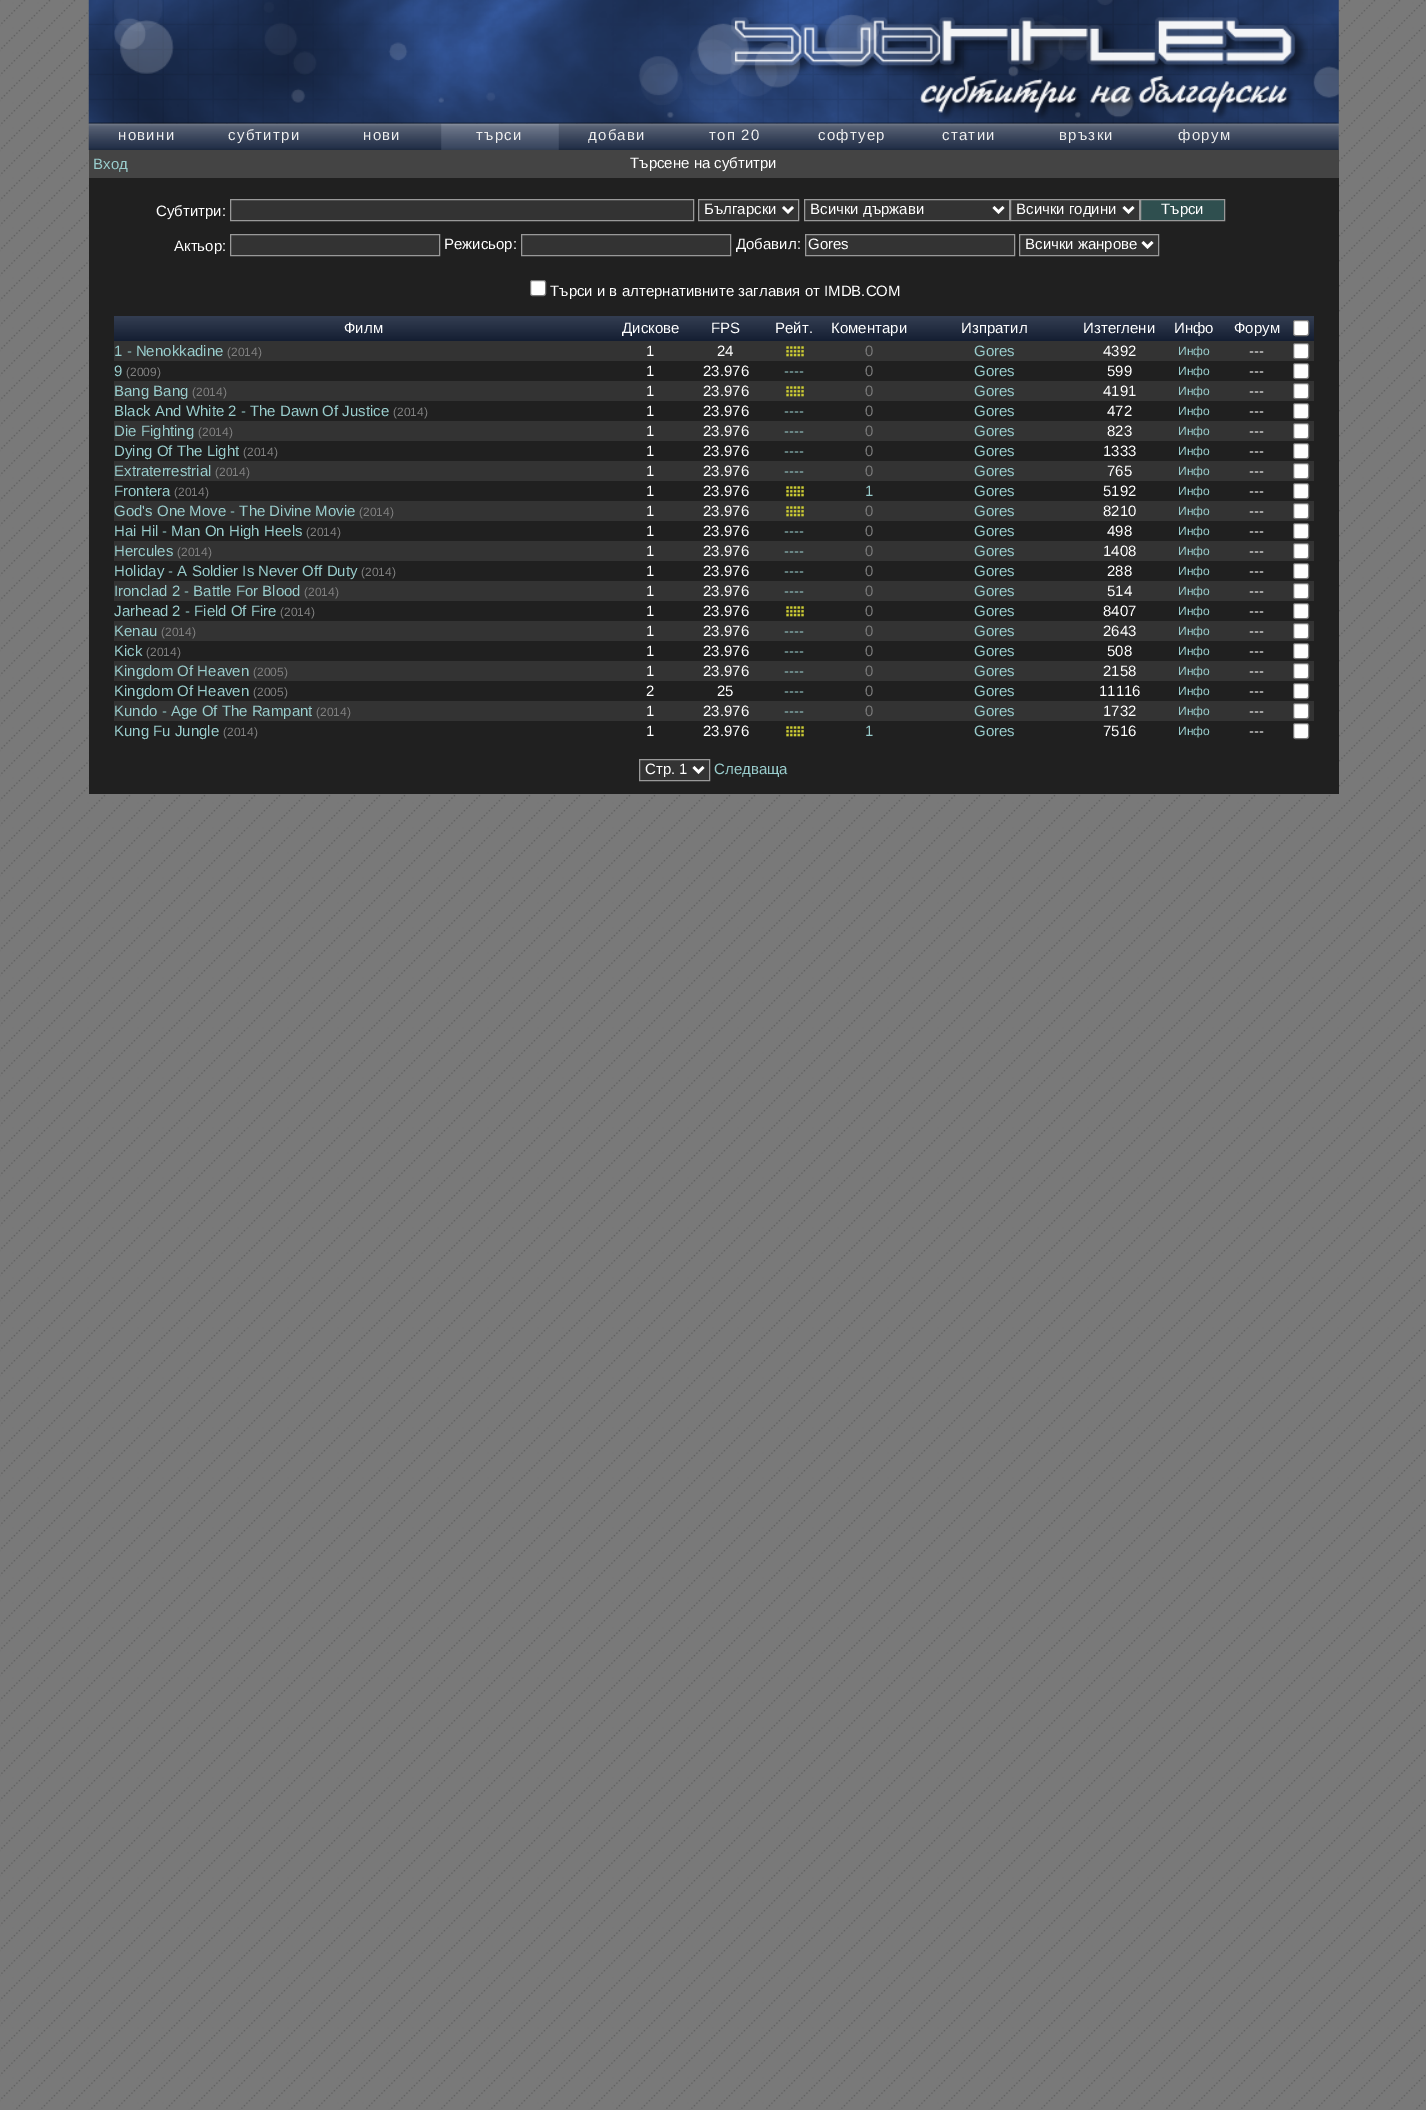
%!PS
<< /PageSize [1426 2110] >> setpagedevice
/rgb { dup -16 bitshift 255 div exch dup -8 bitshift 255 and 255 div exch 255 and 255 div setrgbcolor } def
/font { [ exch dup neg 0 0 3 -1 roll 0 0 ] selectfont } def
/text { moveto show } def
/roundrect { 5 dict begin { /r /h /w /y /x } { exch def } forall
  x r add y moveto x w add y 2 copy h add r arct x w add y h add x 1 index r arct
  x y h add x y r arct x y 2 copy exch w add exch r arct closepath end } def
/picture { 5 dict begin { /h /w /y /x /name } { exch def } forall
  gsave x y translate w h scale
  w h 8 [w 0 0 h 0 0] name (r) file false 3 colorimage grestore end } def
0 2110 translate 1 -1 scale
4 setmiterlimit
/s1 { /LiberationSans-Regular 15 font 16#99CCCC rgb } def
/s2 { /LiberationSans-Regular 15 font 16#FFFFFF rgb } def
/s3 { /LiberationSans-Regular 12 font 16#808080 rgb } def
/s4 { /LiberationSans-Regular 15 font 16#777777 rgb } def
/s5 { /LiberationSans-Regular 12 font 16#99CCCC rgb } def
16#FFFFFF rgb
0 0 1426 2110 rectfill
(pic1.raw) 0 0 1426 2110 picture
(pic2.raw) 88 0 1251 124 picture
(pic4.raw) 731 17 577 102 picture
(pic3.raw) 114 0 1225 118 picture
(pic5.raw) 88 123 1251 27 picture
/LiberationSans-Regular 15 font
16#EEEEEE rgb
118 140 moveto 1.25 0 (новини) ashow
228 140 moveto 1.25 0 (субтитри) ashow
363 140 moveto 1.25 0 (нови) ashow
(pic6.raw) 441 123 118 27 picture
588 140 moveto 1.25 0 (добави) ashow
709 140 moveto 1.25 0 (топ 20) ashow
818 140 moveto 1.25 0 (софтуер) ashow
1178 140 moveto 1.25 0 (форум) ashow
476 140 moveto 1.25 0 (търси) ashow
942 140 moveto 1.25 0 (статии) ashow
1059 140 moveto 1.25 0 (връзки) ashow
16#444444 rgb
89 150 1250 28 rectfill
s1
(Вход) 93 169 text
s2
(Търсене на субтитри) 630 168 text
16#202020 rgb
89 178 1250 616 rectfill
s2
(Субтитри:) 156 216 text
16#333333 rgb
230.5 199.5 moveto 693.5 199.5 lineto 693.5 220.5 lineto 230.5 220.5 lineto closepath gsave fill grestore
16#999999 rgb
stroke
16#333333 rgb
698.5 199.5 moveto 798.5 199.5 lineto 798.5 220.5 lineto 698.5 220.5 lineto closepath gsave fill grestore
16#999999 rgb
stroke
16#FFFFFF rgb
2.5 setlinewidth
783 207 moveto 788 212 lineto 793 207 lineto stroke
(Български) 704 214 text
16#333333 rgb
804.5 199.5 moveto 1009.5 199.5 lineto 1009.5 220.5 lineto 804.5 220.5 lineto closepath gsave fill grestore
16#999999 rgb
1 setlinewidth
stroke
16#FFFFFF rgb
2.5 setlinewidth
993.5 207 moveto 998.5 212 lineto 1003.5 207 lineto stroke
(Всички държави) 810 214 text
16#333333 rgb
1010.5 199.5 moveto 1139.5 199.5 lineto 1139.5 220.5 lineto 1010.5 220.5 lineto closepath gsave fill grestore
16#999999 rgb
1 setlinewidth
stroke
16#FFFFFF rgb
2.5 setlinewidth
1123.5 207 moveto 1128.5 212 lineto 1133.5 207 lineto stroke
(Всички години) 1016 214 text
16#2F4F4F rgb
1140.5 199.5 moveto 1224.5 199.5 lineto 1224.5 220.5 lineto 1140.5 220.5 lineto closepath gsave fill grestore
16#999999 rgb
1 setlinewidth
stroke
s2
(Търси) 1161 214 text
(Актьор:) 174 251 text
16#333333 rgb
230.5 234.5 moveto 439.5 234.5 lineto 439.5 255.5 lineto 230.5 255.5 lineto closepath gsave fill grestore
16#999999 rgb
stroke
s2
(Режисьор:) 444 249 text
16#333333 rgb
521.5 234.5 moveto 730.5 234.5 lineto 730.5 255.5 lineto 521.5 255.5 lineto closepath gsave fill grestore
16#999999 rgb
stroke
s2
(Добавил:) 736 249 text
16#333333 rgb
805.5 234.5 moveto 1014.5 234.5 lineto 1014.5 255.5 lineto 805.5 255.5 lineto closepath gsave fill grestore
16#999999 rgb
stroke
s2
(Gores) 808 249 text
16#333333 rgb
1019.5 234.5 moveto 1158.5 234.5 lineto 1158.5 255.5 lineto 1019.5 255.5 lineto closepath gsave fill grestore
16#999999 rgb
stroke
16#FFFFFF rgb
2.5 setlinewidth
1142.5 242 moveto 1147.5 247 lineto 1152.5 242 lineto stroke
(Всички жанрове) 1025 249 text
530.5 280.5 15 15 2 roundrect gsave fill grestore
16#767676 rgb
1 setlinewidth
stroke
s2
(Търси и в алтернативните заглавия от IMDB.COM) 550 296 text
gsave 114 316 moveto 614 316 lineto 614 341 lineto 114 341 lineto closepath clip newpath
<< /ShadingType 2 /ColorSpace /DeviceRGB /Coords [114 316 114 341] /Extend [true true] /Function << /FunctionType 3 /Domain [0 1] /Functions [<< /FunctionType 2 /Domain [0 1] /C0 [0.196 0.235 0.314] /C1 [0.196 0.235 0.314] /N 1 >> << /FunctionType 2 /Domain [0 1] /C0 [0.196 0.235 0.314] /C1 [0.078 0.118 0.196] /N 1 >>] /Bounds [0.05] /Encode [0 1 0 1] >> >> shfill grestore
(Филм) 344 333 text
gsave 614 316 moveto 689 316 lineto 689 341 lineto 614 341 lineto closepath clip newpath
<< /ShadingType 2 /ColorSpace /DeviceRGB /Coords [614 316 614 341] /Extend [true true] /Function << /FunctionType 3 /Domain [0 1] /Functions [<< /FunctionType 2 /Domain [0 1] /C0 [0.196 0.235 0.314] /C1 [0.196 0.235 0.314] /N 1 >> << /FunctionType 2 /Domain [0 1] /C0 [0.196 0.235 0.314] /C1 [0.078 0.118 0.196] /N 1 >>] /Bounds [0.05] /Encode [0 1 0 1] >> >> shfill grestore
(Дискове) 622 333 text
gsave 689 316 moveto 764 316 lineto 764 341 lineto 689 341 lineto closepath clip newpath
<< /ShadingType 2 /ColorSpace /DeviceRGB /Coords [689 316 689 341] /Extend [true true] /Function << /FunctionType 3 /Domain [0 1] /Functions [<< /FunctionType 2 /Domain [0 1] /C0 [0.196 0.235 0.314] /C1 [0.196 0.235 0.314] /N 1 >> << /FunctionType 2 /Domain [0 1] /C0 [0.196 0.235 0.314] /C1 [0.078 0.118 0.196] /N 1 >>] /Bounds [0.05] /Encode [0 1 0 1] >> >> shfill grestore
(FPS) 711 333 text
gsave 764 316 moveto 826 316 lineto 826 341 lineto 764 341 lineto closepath clip newpath
<< /ShadingType 2 /ColorSpace /DeviceRGB /Coords [764 316 764 341] /Extend [true true] /Function << /FunctionType 3 /Domain [0 1] /Functions [<< /FunctionType 2 /Domain [0 1] /C0 [0.196 0.235 0.314] /C1 [0.196 0.235 0.314] /N 1 >> << /FunctionType 2 /Domain [0 1] /C0 [0.196 0.235 0.314] /C1 [0.078 0.118 0.196] /N 1 >>] /Bounds [0.05] /Encode [0 1 0 1] >> >> shfill grestore
(Рейт.) 775 333 text
gsave 826 316 moveto 914 316 lineto 914 341 lineto 826 341 lineto closepath clip newpath
<< /ShadingType 2 /ColorSpace /DeviceRGB /Coords [826 316 826 341] /Extend [true true] /Function << /FunctionType 3 /Domain [0 1] /Functions [<< /FunctionType 2 /Domain [0 1] /C0 [0.196 0.235 0.314] /C1 [0.196 0.235 0.314] /N 1 >> << /FunctionType 2 /Domain [0 1] /C0 [0.196 0.235 0.314] /C1 [0.078 0.118 0.196] /N 1 >>] /Bounds [0.05] /Encode [0 1 0 1] >> >> shfill grestore
(Коментари) 831 333 text
gsave 914 316 moveto 1076 316 lineto 1076 341 lineto 914 341 lineto closepath clip newpath
<< /ShadingType 2 /ColorSpace /DeviceRGB /Coords [914 316 914 341] /Extend [true true] /Function << /FunctionType 3 /Domain [0 1] /Functions [<< /FunctionType 2 /Domain [0 1] /C0 [0.196 0.235 0.314] /C1 [0.196 0.235 0.314] /N 1 >> << /FunctionType 2 /Domain [0 1] /C0 [0.196 0.235 0.314] /C1 [0.078 0.118 0.196] /N 1 >>] /Bounds [0.05] /Encode [0 1 0 1] >> >> shfill grestore
(Изпратил) 961 333 text
gsave 1076 316 moveto 1164 316 lineto 1164 341 lineto 1076 341 lineto closepath clip newpath
<< /ShadingType 2 /ColorSpace /DeviceRGB /Coords [1076 316 1076 341] /Extend [true true] /Function << /FunctionType 3 /Domain [0 1] /Functions [<< /FunctionType 2 /Domain [0 1] /C0 [0.196 0.235 0.314] /C1 [0.196 0.235 0.314] /N 1 >> << /FunctionType 2 /Domain [0 1] /C0 [0.196 0.235 0.314] /C1 [0.078 0.118 0.196] /N 1 >>] /Bounds [0.05] /Encode [0 1 0 1] >> >> shfill grestore
(Изтеглени) 1083 333 text
gsave 1164 316 moveto 1226 316 lineto 1226 341 lineto 1164 341 lineto closepath clip newpath
<< /ShadingType 2 /ColorSpace /DeviceRGB /Coords [1164 316 1164 341] /Extend [true true] /Function << /FunctionType 3 /Domain [0 1] /Functions [<< /FunctionType 2 /Domain [0 1] /C0 [0.196 0.235 0.314] /C1 [0.196 0.235 0.314] /N 1 >> << /FunctionType 2 /Domain [0 1] /C0 [0.196 0.235 0.314] /C1 [0.078 0.118 0.196] /N 1 >>] /Bounds [0.05] /Encode [0 1 0 1] >> >> shfill grestore
(Инфо) 1174 333 text
gsave 1226 316 moveto 1289 316 lineto 1289 341 lineto 1226 341 lineto closepath clip newpath
<< /ShadingType 2 /ColorSpace /DeviceRGB /Coords [1226 316 1226 341] /Extend [true true] /Function << /FunctionType 3 /Domain [0 1] /Functions [<< /FunctionType 2 /Domain [0 1] /C0 [0.196 0.235 0.314] /C1 [0.196 0.235 0.314] /N 1 >> << /FunctionType 2 /Domain [0 1] /C0 [0.196 0.235 0.314] /C1 [0.078 0.118 0.196] /N 1 >>] /Bounds [0.05] /Encode [0 1 0 1] >> >> shfill grestore
(Форум) 1234 333 text
gsave 1289 316 moveto 1314 316 lineto 1314 341 lineto 1289 341 lineto closepath clip newpath
<< /ShadingType 2 /ColorSpace /DeviceRGB /Coords [1289 316 1289 341] /Extend [true true] /Function << /FunctionType 3 /Domain [0 1] /Functions [<< /FunctionType 2 /Domain [0 1] /C0 [0.196 0.235 0.314] /C1 [0.196 0.235 0.314] /N 1 >> << /FunctionType 2 /Domain [0 1] /C0 [0.196 0.235 0.314] /C1 [0.078 0.118 0.196] /N 1 >>] /Bounds [0.05] /Encode [0 1 0 1] >> >> shfill grestore
1293.5 320.5 15 15 2 roundrect gsave fill grestore
16#767676 rgb
stroke
16#333333 rgb
114 341 1200 20 rectfill
s1
(1 - Nenokkadine) 114 356 text
s3
(\(2014\)) 227 356 text
s2
(1) 646 356 text
(24) 717 356 text
(pic7.raw) 786 346 18 11 picture
s4
(0) 865 356 text
s1
(Gores) 974 356 text
s2
(4392) 1103 356 text
s5
(Инфо) 1178 355 text
s2
(---) 1249 356 text
1293.5 343.5 15 15 2 roundrect gsave fill grestore
16#767676 rgb
stroke
s1
(9) 114 376 text
s3
(\(2009\)) 126 376 text
s2
(1) 646 376 text
(23.976) 703 376 text
s1
(----) 784 376 text
s4
(0) 865 376 text
s1
(Gores) 974 376 text
s2
(599) 1107 376 text
s5
(Инфо) 1178 375 text
s2
(---) 1249 376 text
1293.5 363.5 15 15 2 roundrect gsave fill grestore
16#767676 rgb
stroke
16#333333 rgb
114 381 1200 20 rectfill
s1
(Bang Bang) 114 396 text
s3
(\(2014\)) 192 396 text
s2
(1) 646 396 text
(23.976) 703 396 text
(pic7.raw) 786 386 18 11 picture
s4
(0) 865 396 text
s1
(Gores) 974 396 text
s2
(4191) 1103 396 text
s5
(Инфо) 1178 395 text
s2
(---) 1249 396 text
1293.5 383.5 15 15 2 roundrect gsave fill grestore
16#767676 rgb
stroke
s1
(Black And White 2 - The Dawn Of Justice) 114 416 text
s3
(\(2014\)) 393 416 text
s2
(1) 646 416 text
(23.976) 703 416 text
s1
(----) 784 416 text
s4
(0) 865 416 text
s1
(Gores) 974 416 text
s2
(472) 1107 416 text
s5
(Инфо) 1178 415 text
s2
(---) 1249 416 text
1293.5 403.5 15 15 2 roundrect gsave fill grestore
16#767676 rgb
stroke
16#333333 rgb
114 421 1200 20 rectfill
s1
(Die Fighting) 114 436 text
s3
(\(2014\)) 198 436 text
s2
(1) 646 436 text
(23.976) 703 436 text
s1
(----) 784 436 text
s4
(0) 865 436 text
s1
(Gores) 974 436 text
s2
(823) 1107 436 text
s5
(Инфо) 1178 435 text
s2
(---) 1249 436 text
1293.5 423.5 15 15 2 roundrect gsave fill grestore
16#767676 rgb
stroke
s1
(Dying Of The Light) 114 456 text
s3
(\(2014\)) 243 456 text
s2
(1) 646 456 text
(23.976) 703 456 text
s1
(----) 784 456 text
s4
(0) 865 456 text
s1
(Gores) 974 456 text
s2
(1333) 1103 456 text
s5
(Инфо) 1178 455 text
s2
(---) 1249 456 text
1293.5 443.5 15 15 2 roundrect gsave fill grestore
16#767676 rgb
stroke
16#333333 rgb
114 461 1200 20 rectfill
s1
(Extraterrestrial) 114 476 text
s3
(\(2014\)) 215 476 text
s2
(1) 646 476 text
(23.976) 703 476 text
s1
(----) 784 476 text
s4
(0) 865 476 text
s1
(Gores) 974 476 text
s2
(765) 1107 476 text
s5
(Инфо) 1178 475 text
s2
(---) 1249 476 text
1293.5 463.5 15 15 2 roundrect gsave fill grestore
16#767676 rgb
stroke
s1
(Frontera) 114 496 text
s3
(\(2014\)) 174 496 text
s2
(1) 646 496 text
(23.976) 703 496 text
(pic8.raw) 786 486 18 11 picture
s1
(1) 865 496 text
(Gores) 974 496 text
s2
(5192) 1103 496 text
s5
(Инфо) 1178 495 text
s2
(---) 1249 496 text
1293.5 483.5 15 15 2 roundrect gsave fill grestore
16#767676 rgb
stroke
16#333333 rgb
114 501 1200 20 rectfill
s1
(God's One Move - The Divine Movie) 114 516 text
s3
(\(2014\)) 359 516 text
s2
(1) 646 516 text
(23.976) 703 516 text
(pic7.raw) 786 506 18 11 picture
s4
(0) 865 516 text
s1
(Gores) 974 516 text
s2
(8210) 1103 516 text
s5
(Инфо) 1178 515 text
s2
(---) 1249 516 text
1293.5 503.5 15 15 2 roundrect gsave fill grestore
16#767676 rgb
stroke
s1
(Hai Hil - Man On High Heels) 114 536 text
s3
(\(2014\)) 306 536 text
s2
(1) 646 536 text
(23.976) 703 536 text
s1
(----) 784 536 text
s4
(0) 865 536 text
s1
(Gores) 974 536 text
s2
(498) 1107 536 text
s5
(Инфо) 1178 535 text
s2
(---) 1249 536 text
1293.5 523.5 15 15 2 roundrect gsave fill grestore
16#767676 rgb
stroke
16#333333 rgb
114 541 1200 20 rectfill
s1
(Hercules) 114 556 text
s3
(\(2014\)) 177 556 text
s2
(1) 646 556 text
(23.976) 703 556 text
s1
(----) 784 556 text
s4
(0) 865 556 text
s1
(Gores) 974 556 text
s2
(1408) 1103 556 text
s5
(Инфо) 1178 555 text
s2
(---) 1249 556 text
1293.5 543.5 15 15 2 roundrect gsave fill grestore
16#767676 rgb
stroke
s1
(Holiday - A Soldier Is Never Off Duty) 114 576 text
s3
(\(2014\)) 361 576 text
s2
(1) 646 576 text
(23.976) 703 576 text
s1
(----) 784 576 text
s4
(0) 865 576 text
s1
(Gores) 974 576 text
s2
(288) 1107 576 text
s5
(Инфо) 1178 575 text
s2
(---) 1249 576 text
1293.5 563.5 15 15 2 roundrect gsave fill grestore
16#767676 rgb
stroke
16#333333 rgb
114 581 1200 20 rectfill
s1
(Ironclad 2 - Battle For Blood) 114 596 text
s3
(\(2014\)) 304 596 text
s2
(1) 646 596 text
(23.976) 703 596 text
s1
(----) 784 596 text
s4
(0) 865 596 text
s1
(Gores) 974 596 text
s2
(514) 1107 596 text
s5
(Инфо) 1178 595 text
s2
(---) 1249 596 text
1293.5 583.5 15 15 2 roundrect gsave fill grestore
16#767676 rgb
stroke
s1
(Jarhead 2 - Field Of Fire) 114 616 text
s3
(\(2014\)) 280 616 text
s2
(1) 646 616 text
(23.976) 703 616 text
(pic8.raw) 786 606 18 11 picture
s4
(0) 865 616 text
s1
(Gores) 974 616 text
s2
(8407) 1103 616 text
s5
(Инфо) 1178 615 text
s2
(---) 1249 616 text
1293.5 603.5 15 15 2 roundrect gsave fill grestore
16#767676 rgb
stroke
16#333333 rgb
114 621 1200 20 rectfill
s1
(Kenau) 114 636 text
s3
(\(2014\)) 161 636 text
s2
(1) 646 636 text
(23.976) 703 636 text
s1
(----) 784 636 text
s4
(0) 865 636 text
s1
(Gores) 974 636 text
s2
(2643) 1103 636 text
s5
(Инфо) 1178 635 text
s2
(---) 1249 636 text
1293.5 623.5 15 15 2 roundrect gsave fill grestore
16#767676 rgb
stroke
s1
(Kick) 114 656 text
s3
(\(2014\)) 146 656 text
s2
(1) 646 656 text
(23.976) 703 656 text
s1
(----) 784 656 text
s4
(0) 865 656 text
s1
(Gores) 974 656 text
s2
(508) 1107 656 text
s5
(Инфо) 1178 655 text
s2
(---) 1249 656 text
1293.5 643.5 15 15 2 roundrect gsave fill grestore
16#767676 rgb
stroke
16#333333 rgb
114 661 1200 20 rectfill
s1
(Kingdom Of Heaven) 114 676 text
s3
(\(2005\)) 253 676 text
s2
(1) 646 676 text
(23.976) 703 676 text
s1
(----) 784 676 text
s4
(0) 865 676 text
s1
(Gores) 974 676 text
s2
(2158) 1103 676 text
s5
(Инфо) 1178 675 text
s2
(---) 1249 676 text
1293.5 663.5 15 15 2 roundrect gsave fill grestore
16#767676 rgb
stroke
s1
(Kingdom Of Heaven) 114 696 text
s3
(\(2005\)) 253 696 text
s2
(2) 646 696 text
(25) 717 696 text
s1
(----) 784 696 text
s4
(0) 865 696 text
s1
(Gores) 974 696 text
s2
(11116) 1099 696 text
s5
(Инфо) 1178 695 text
s2
(---) 1249 696 text
1293.5 683.5 15 15 2 roundrect gsave fill grestore
16#767676 rgb
stroke
16#333333 rgb
114 701 1200 20 rectfill
s1
(Kundo - Age Of The Rampant) 114 716 text
s3
(\(2014\)) 316 716 text
s2
(1) 646 716 text
(23.976) 703 716 text
s1
(----) 784 716 text
s4
(0) 865 716 text
s1
(Gores) 974 716 text
s2
(1732) 1103 716 text
s5
(Инфо) 1178 715 text
s2
(---) 1249 716 text
1293.5 703.5 15 15 2 roundrect gsave fill grestore
16#767676 rgb
stroke
s1
(Kung Fu Jungle) 114 736 text
s3
(\(2014\)) 223 736 text
s2
(1) 646 736 text
(23.976) 703 736 text
(pic8.raw) 786 726 18 11 picture
s1
(1) 865 736 text
(Gores) 974 736 text
s2
(7516) 1103 736 text
s5
(Инфо) 1178 735 text
s2
(---) 1249 736 text
1293.5 723.5 15 15 2 roundrect gsave fill grestore
16#767676 rgb
stroke
16#333333 rgb
639.5 759.5 moveto 709.5 759.5 lineto 709.5 780.5 lineto 639.5 780.5 lineto closepath gsave fill grestore
16#999999 rgb
stroke
16#FFFFFF rgb
2.5 setlinewidth
693.5 767 moveto 698.5 772 lineto 703.5 767 lineto stroke
(Стр. 1) 645 774 text
s1
(Следваща) 714 774 text
showpage
